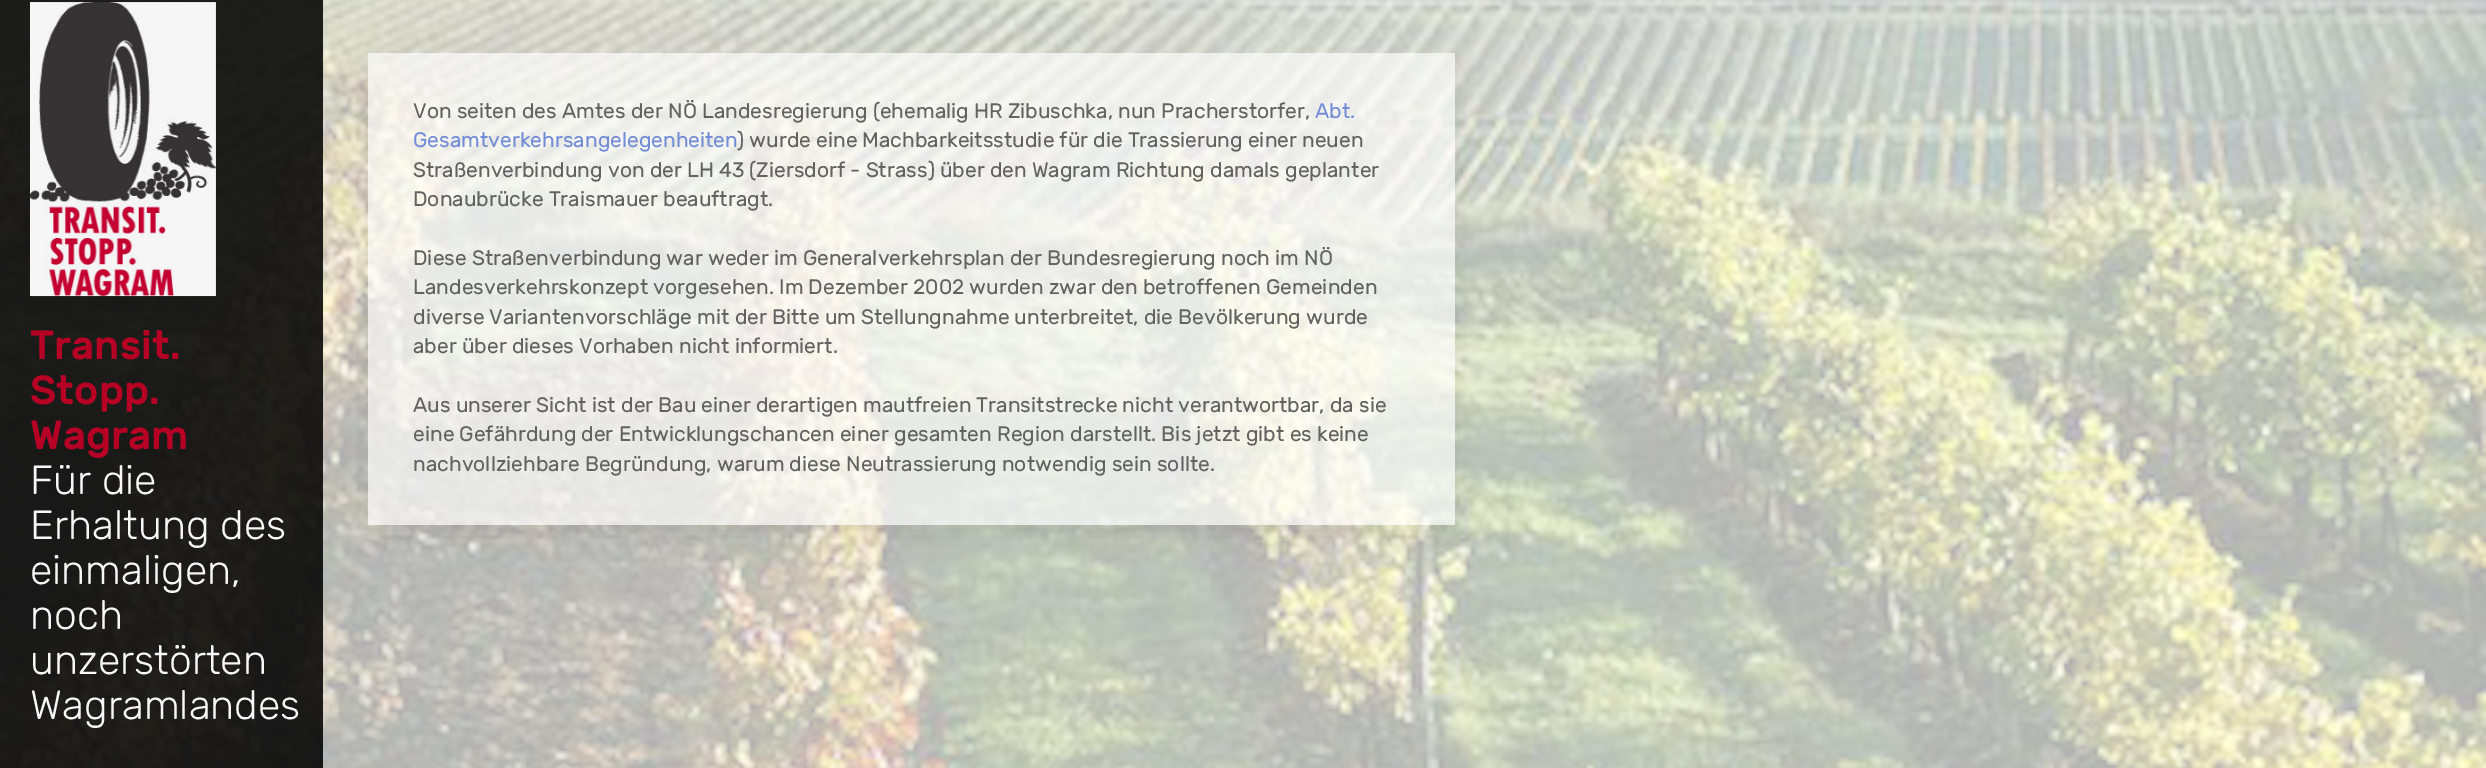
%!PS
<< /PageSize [2486 768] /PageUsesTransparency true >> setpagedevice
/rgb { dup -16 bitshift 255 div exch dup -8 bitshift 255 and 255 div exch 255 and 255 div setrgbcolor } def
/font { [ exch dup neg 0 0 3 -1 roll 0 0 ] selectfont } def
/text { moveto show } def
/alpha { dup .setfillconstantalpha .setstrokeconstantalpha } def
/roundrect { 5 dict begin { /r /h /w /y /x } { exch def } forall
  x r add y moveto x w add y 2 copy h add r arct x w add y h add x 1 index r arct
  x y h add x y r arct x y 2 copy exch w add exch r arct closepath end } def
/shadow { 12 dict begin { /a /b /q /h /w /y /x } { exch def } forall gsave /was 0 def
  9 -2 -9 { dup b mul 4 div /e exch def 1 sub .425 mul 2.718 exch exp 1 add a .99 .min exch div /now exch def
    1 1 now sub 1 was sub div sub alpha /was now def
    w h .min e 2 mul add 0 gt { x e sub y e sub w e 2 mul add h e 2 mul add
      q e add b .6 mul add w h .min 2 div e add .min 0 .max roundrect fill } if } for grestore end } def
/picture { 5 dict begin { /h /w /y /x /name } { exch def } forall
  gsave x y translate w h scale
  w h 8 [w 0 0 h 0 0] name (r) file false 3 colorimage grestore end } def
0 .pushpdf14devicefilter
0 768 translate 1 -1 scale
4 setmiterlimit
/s1 { /Rubik-Regular 21 font 16#626261 rgb } def
/s2 { /Rubik-Regular 21 font 16#728CD6 rgb } def
/s3 { /Rubik-Medium 40.75 font 16#B60125 rgb } def
/s4 { /Rubik-Light 40.75 font 16#F7F7F7 rgb } def
16#FFFFFF rgb
0 0 2486 768 rectfill
(pic1.raw) 0 0 2486 768 picture
gsave
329 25 moveto 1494 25 lineto 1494 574 lineto 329 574 lineto closepath 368 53 moveto 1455 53 lineto 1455 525 lineto 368 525 lineto closepath eoclip newpath
16#000000 rgb
375 71 1073 457 0 15 0.14 shadow
grestore
0.65 alpha
368 53 1087 472 rectfill
1 alpha
s1
(Von seiten des Amtes der NÖ Landesregierung \(ehemalig HR Zibuschka, nun Pracherstorfer,) 413 118 text
s2
(Abt.) 1315 118 text
(Gesamtverkehrsangelegenheiten) 413 147 text
s1
(\) wurde eine Machbarkeitsstudie für die Trassierung einer neuen) 737 147 text
(Straßenverbindung von der LH 43 \(Ziersdorf - Strass\) über den Wagram Richtung damals geplanter) 413 177 text
(Donaubrücke Traismauer beauftragt.) 413 206 text
(Diese Straßenverbindung war weder im Generalverkehrsplan der Bundesregierung noch im NÖ) 413 265 text
(Landesverkehrskonzept vorgesehen. Im Dezember 2002 wurden zwar den betroffenen Gemeinden) 413 294 text
(diverse Variantenvorschläge mit der Bitte um Stellungnahme unterbreitet, die Bevölkerung wurde) 413 324 text
(aber über dieses Vorhaben nicht informiert.) 413 353 text
(Aus unserer Sicht ist der Bau einer derartigen mautfreien Transitstrecke nicht verantwortbar, da sie) 413 412 text
(eine Gefährdung der Entwicklungschancen einer gesamten Region darstellt. Bis jetzt gibt es keine) 413 441 text
(nachvollziehbare Begründung, warum diese Neutrassierung notwendig sein sollte.) 413 471 text
0.87 alpha
16#000000 rgb
0 0 323 768 rectfill
1 alpha
(pic2.raw) 30 2 186 295 picture
s3
(Transit.) 30 359 text
(Stopp.) 30 404 text
(Wagram) 30 449 text
s4
(Für die) 30 494 text
(Erhaltung des) 30 539 text
(einmaligen,) 30 584 text
(noch) 30 629 text
(unzerstörten) 30 674 text
(Wagramlandes) 30 719 text
.poppdf14devicefilter showpage
